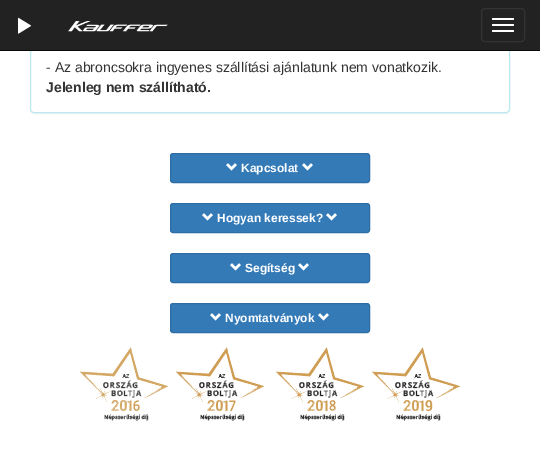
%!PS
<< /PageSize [540 462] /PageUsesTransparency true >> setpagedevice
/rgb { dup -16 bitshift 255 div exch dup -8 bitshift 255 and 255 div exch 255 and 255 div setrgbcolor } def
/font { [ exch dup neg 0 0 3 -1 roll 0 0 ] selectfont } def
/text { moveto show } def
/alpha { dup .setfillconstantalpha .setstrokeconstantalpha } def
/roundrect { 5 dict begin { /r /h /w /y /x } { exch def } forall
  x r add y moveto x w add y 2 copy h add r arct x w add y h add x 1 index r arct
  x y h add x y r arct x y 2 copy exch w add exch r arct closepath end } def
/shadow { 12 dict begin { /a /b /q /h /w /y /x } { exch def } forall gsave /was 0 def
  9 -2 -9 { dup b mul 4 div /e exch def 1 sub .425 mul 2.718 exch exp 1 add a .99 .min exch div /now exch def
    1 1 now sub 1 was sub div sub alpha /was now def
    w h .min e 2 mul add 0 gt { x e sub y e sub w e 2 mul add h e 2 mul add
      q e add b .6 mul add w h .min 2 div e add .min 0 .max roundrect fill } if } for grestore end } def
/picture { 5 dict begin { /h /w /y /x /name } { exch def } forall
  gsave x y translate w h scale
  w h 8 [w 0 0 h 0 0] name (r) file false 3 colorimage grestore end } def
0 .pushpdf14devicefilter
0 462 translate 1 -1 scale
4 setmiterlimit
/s1 { /LiberationSans-Regular 14 font 16#333333 rgb } def
/s2 { /LiberationSans-Bold 14 font 16#333333 rgb } def
/s3 { /LiberationSans-Bold 12 font 16#FFFFFF rgb } def
16#FFFFFF rgb
0 0 540 462 rectfill
16#000000 rgb
30 -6 480 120 4 0.5 0.05 shadow
16#FFFFFF rgb
30.5 -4.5 479 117 3.5 roundrect gsave fill grestore
16#BCE8F1 rgb
stroke
16#222222 rgb
0 0 540 50 rectfill
16#080808 rgb
0 50 540 1 rectfill
(pic1.raw) 18 17 14 17 picture
(pic2.raw) 68 21 100 11 picture
16#333333 rgb
481.5 8.5 43 33 3.5 roundrect stroke
16#FFFFFF rgb
492 18 22 2 1 roundrect fill
492 24 22 2 1 roundrect fill
492 30 22 2 1 roundrect fill
s1
(- Az abroncsokra ingyenes szállítási ajánlatunk nem vonatkozik.) 46 72 text
s2
(Jelenleg nem szállítható.) 46 92 text
16#337AB7 rgb
170.5 153.5 199 29 2.5 roundrect gsave fill grestore
16#2E6DA4 rgb
stroke
(pic3.raw) 226 163 11 8 picture
s3
(Kapcsolat) 241 172 text
(pic3.raw) 302 163 11 8 picture
16#337AB7 rgb
170.5 203.5 199 29 2.5 roundrect gsave fill grestore
16#2E6DA4 rgb
stroke
(pic3.raw) 202 213 11 8 picture
s3
(Hogyan keressek?) 217 222 text
(pic3.raw) 326 213 11 8 picture
16#337AB7 rgb
170.5 253.5 199 29 2.5 roundrect gsave fill grestore
16#2E6DA4 rgb
stroke
(pic3.raw) 230 263 11 8 picture
s3
(Segítség) 245 272 text
(pic3.raw) 298 263 11 8 picture
16#337AB7 rgb
170.5 303.5 199 29 2.5 roundrect gsave fill grestore
16#2E6DA4 rgb
stroke
(pic3.raw) 210 313 11 8 picture
s3
(Nyomtatványok) 225 322 text
(pic3.raw) 318 313 11 8 picture
(pic4.raw) 80 347 381 74 picture
.poppdf14devicefilter showpage
